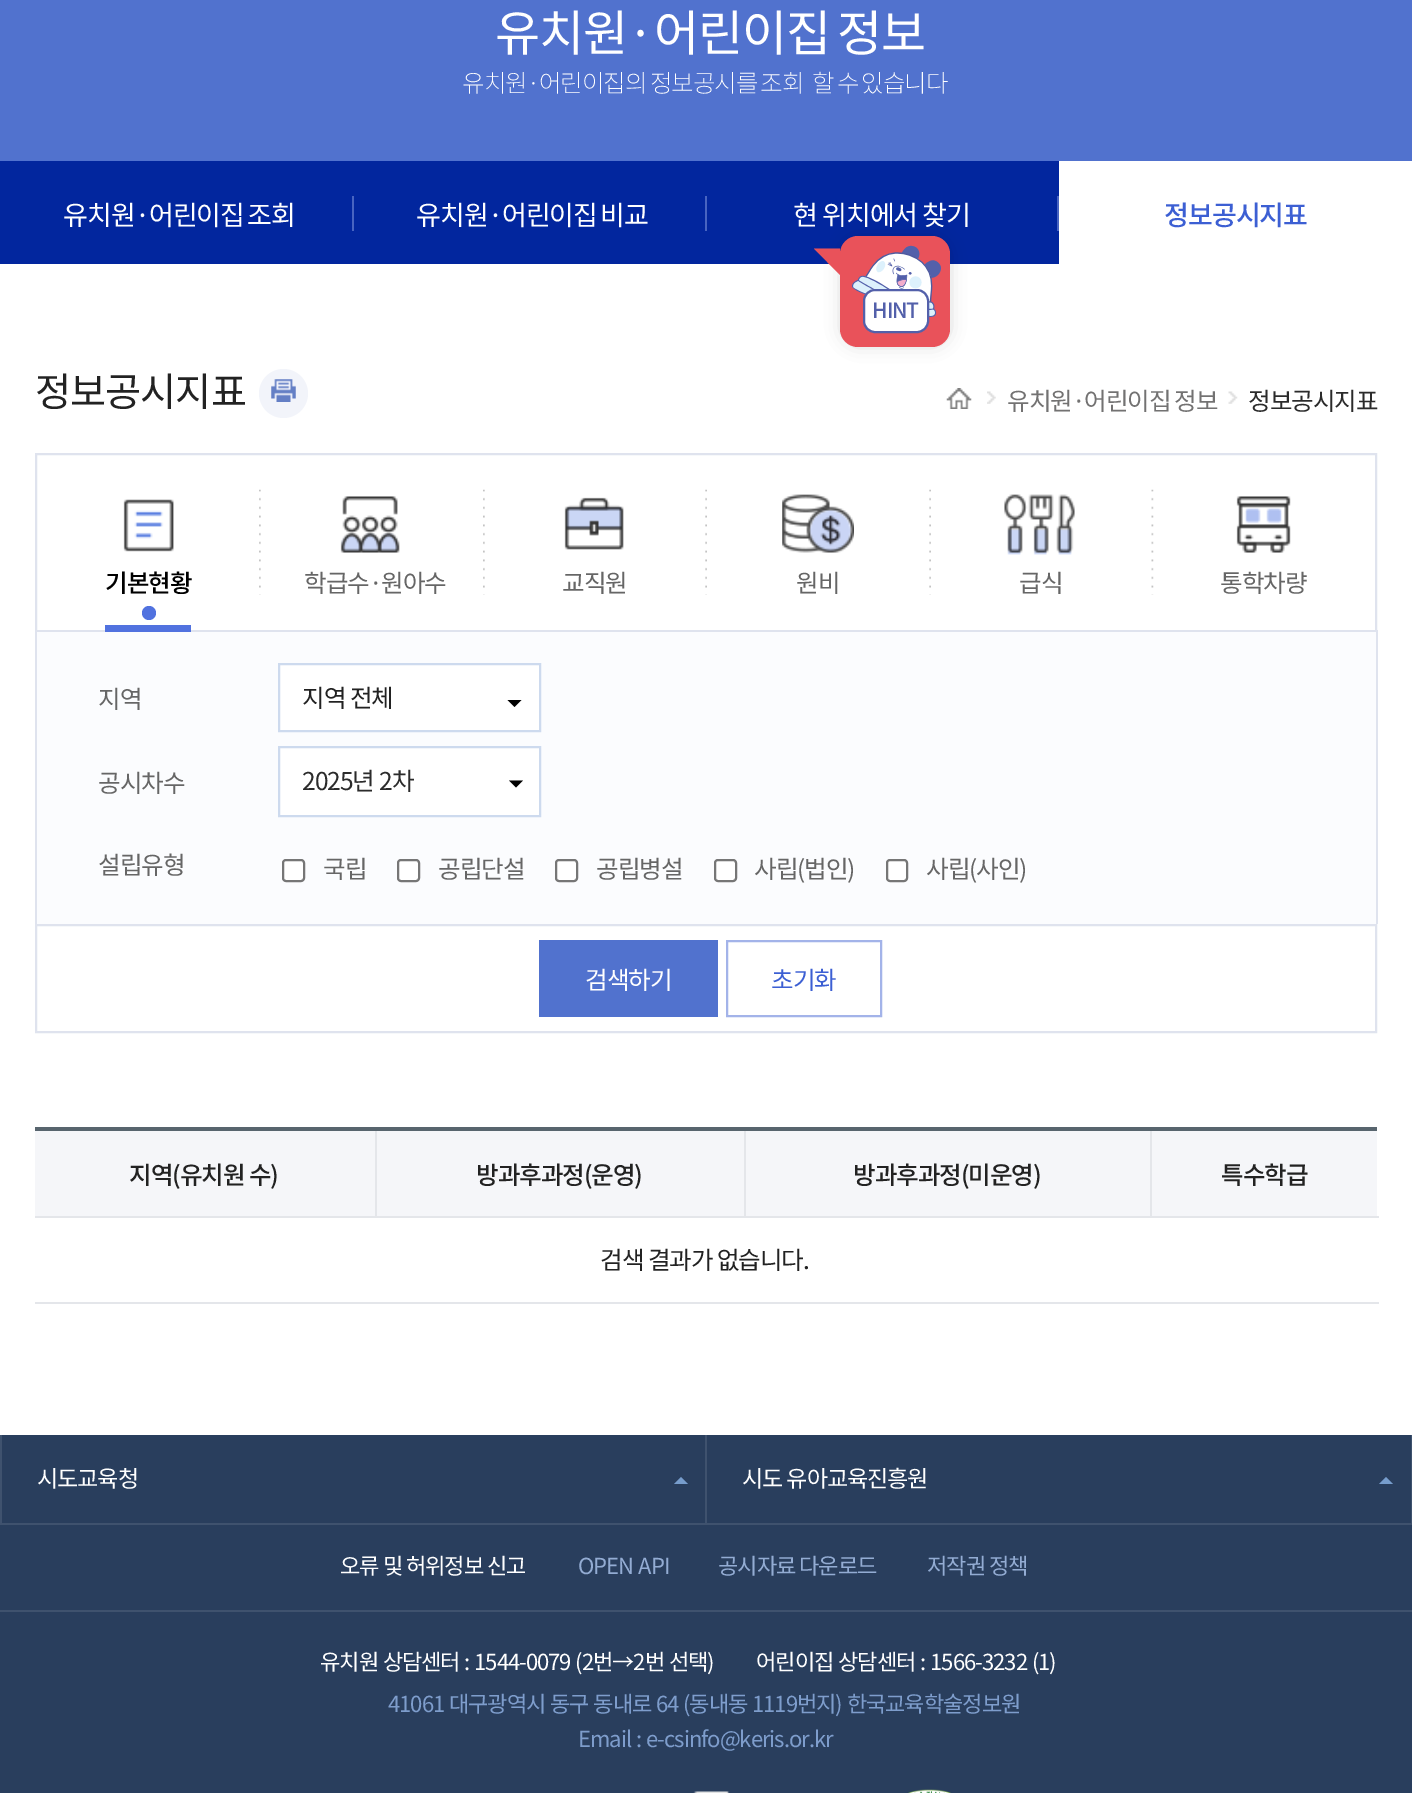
%!PS
<< /PageSize [1412 1793] /PageUsesTransparency true >> setpagedevice
/rgb { dup -16 bitshift 255 div exch dup -8 bitshift 255 and 255 div exch 255 and 255 div setrgbcolor } def
/font { [ exch dup neg 0 0 3 -1 roll 0 0 ] selectfont } def
/alpha { dup .setfillconstantalpha .setstrokeconstantalpha } def
/circle { newpath 0 360 arc closepath } def
/roundrect { 5 dict begin { /r /h /w /y /x } { exch def } forall
  x r add y moveto x w add y 2 copy h add r arct x w add y h add x 1 index r arct
  x y h add x y r arct x y 2 copy exch w add exch r arct closepath end } def
/shadow { 12 dict begin { /a /b /q /h /w /y /x } { exch def } forall gsave /was 0 def
  9 -2 -9 { dup b mul 4 div /e exch def 1 sub .425 mul 2.718 exch exp 1 add a .99 .min exch div /now exch def
    1 1 now sub 1 was sub div sub alpha /was now def
    w h .min e 2 mul add 0 gt { x e sub y e sub w e 2 mul add h e 2 mul add
      q e add b .6 mul add w h .min 2 div e add .min 0 .max roundrect fill } if } for grestore end } def
/picture { 5 dict begin { /h /w /y /x /name } { exch def } forall
  gsave x y translate w h scale
  w h 8 [w 0 0 h 0 0] name (r) file false 3 colorimage grestore end } def
0 .pushpdf14devicefilter
0 1793 translate 1 -1 scale
4 setmiterlimit
16#5172CE rgb
0 0 1412 1793 rectfill
/NotoSansKR-Regular 49 font
16#FFFFFF rgb
495 51 moveto -3 0 32 -1 0 (유치원·어린이집 정보) awidthshow
/NotoSansKR-ExtraLight 24.5 font
462 92 moveto -1.25 0 32 -1 0 (유치원·어린이집의 정보공시를 조회) awidthshow
812 92 moveto -1.25 0 32 -1 0 (할 수 있습니다) awidthshow
16#02269E rgb
0 161 1059 103 rectfill
/NotoSansKR-Regular 27 font
16#FFFFFF rgb
63 225 moveto -2 0 32 -1 0 (유치원·어린이집 조회) awidthshow
16#4864C1 rgb
352 196 2 35 rectfill
16#FFFFFF rgb
416 225 moveto -2 0 32 -1 0 (유치원·어린이집 비교) awidthshow
16#4864C1 rgb
705 196 2 35 rectfill
16#FFFFFF rgb
793 225 moveto -1 0 (현 위치에서 찾기) ashow
0 264 1412 1171 rectfill
16#000000 rgb
844 240 103 103 14 9 0.2 shadow
16#E9525A rgb
840 236 110 111 18 roundrect fill
840 248.5 moveto 840 275 lineto 814 248.5 lineto closepath fill
(pic1.raw) 851 245 90 91 picture
16#FFFFFF rgb
864 290 64 42 11 roundrect gsave fill grestore
16#5360AA rgb
2 setlinewidth
stroke
/NotoSansKR-Medium 21 font
872 318 moveto -1 0 (HINT) ashow
16#4864C1 rgb
1057 196 2 35 rectfill
16#FFFFFF rgb
1059 161 353 103 rectfill
/NotoSansKR-Medium 27 font
16#3C5FD3 rgb
1164 225 moveto -1 0 (정보공시지표) ashow
/NotoSansKR-Regular 39.25 font
16#222222 rgb
35 406 moveto -1 0 (정보공시지표) ashow
16#F2F4FA rgb
283.5 393.5 24.5 circle fill
(pic2.raw) 271 379 25 23 picture
(pic3.raw) 946 388 26 21 picture
(pic4.raw) 987 391 9 13 picture
/NotoSansKR-Regular 24.5 font
16#737272 rgb
1007 410 moveto -1 0 32 -1 0 (유치원·어린이집 정보) awidthshow
(pic5.raw) 1228 391 10 13 picture
16#2B2B2B rgb
1248 410 moveto -1 0 (정보공시지표) ashow
16#DFE3EE rgb
36 454 1340 177 rectstroke
(pic6.raw) 123 499 51 53 picture
16#5172DF rgb
105 625 86 7 rectfill
/NotoSansKR-Medium 24.5 font
16#000000 rgb
105 592 moveto -1 0 (기본현황) ashow
16#5172DF rgb
149 613 7 circle fill
(pic7.raw) 259 489 2 106 picture
(pic8.raw) 340 496 60 57 picture
/NotoSansKR-Regular 24.5 font
16#666666 rgb
304 592 moveto -1 0 (학급수·원아수) ashow
(pic7.raw) 483 489 2 106 picture
(pic9.raw) 564 497 60 53 picture
562 592 moveto -1 0 (교직원) ashow
(pic10.raw) 705 489 2 106 picture
(pic11.raw) 782 494 72 59 picture
796 592 moveto -1 0 (원비) ashow
(pic10.raw) 929 489 2 106 picture
(pic12.raw) 1004 494 71 61 picture
1019 592 moveto -1 0 (급식) ashow
(pic13.raw) 1151 489 3 106 picture
(pic14.raw) 1236 496 55 57 picture
1220 592 moveto -1 0 (통학차량) ashow
16#FBFCFE rgb
37 632 1339 292 rectfill
16#DFE3EE rgb
1376 630 2 294 rectfill
35 630 2 294 rectfill
16#666666 rgb
98 708 moveto -1 0 (지역) ashow
16#FFFFFF rgb
279 664 moveto 540 664 lineto 540 731 lineto 279 731 lineto closepath gsave fill grestore
16#CDDAEE rgb
stroke
16#222222 rgb
302 707 moveto -1 0 (지역 전체) ashow
16#000000 rgb
507.5 700 moveto 521.5 700 lineto 514.5 707 lineto closepath fill
16#666666 rgb
98 792 moveto -1 0 (공시차수) ashow
16#FFFFFF rgb
279 747 moveto 540 747 lineto 540 816 lineto 279 816 lineto closepath gsave fill grestore
16#CDDAEE rgb
stroke
16#2B2B2B rgb
302 790 moveto 1 0 32 -1 0 (2025년 2차) awidthshow
16#000000 rgb
509 780.5 moveto 523 780.5 lineto 516 787.5 lineto closepath fill
16#666666 rgb
98 874 moveto -1 0 (설립유형) ashow
16#FFFFFF rgb
283 860 21 21 3 roundrect gsave fill grestore
16#767676 rgb
stroke
16#666666 rgb
323 878 moveto -1 0 (국립) ashow
16#FFFFFF rgb
398 860 21 21 3 roundrect gsave fill grestore
16#767676 rgb
stroke
16#666666 rgb
438 878 moveto -1 0 (공립단설) ashow
16#FFFFFF rgb
556 860 21 21 3 roundrect gsave fill grestore
16#767676 rgb
stroke
16#666666 rgb
596 878 moveto -1 0 (공립병설) ashow
16#FFFFFF rgb
715 860 21 21 3 roundrect gsave fill grestore
16#767676 rgb
stroke
16#666666 rgb
754 878 moveto -1 0 (사립\(법인\)) ashow
16#FFFFFF rgb
887 860 20 21 3 roundrect gsave fill grestore
16#767676 rgb
stroke
16#666666 rgb
926 878 moveto -1 0 (사립\(사인\)) ashow
16#DFE3EE rgb
36 925 1340 107 rectstroke
16#5172CE rgb
539 940 179 77 rectfill
16#FFFFFF rgb
585 989 moveto -1 0 (검색하기) ashow
16#A3B3E9 rgb
727 941 154 75 rectstroke
16#3C5FD3 rgb
771 989 moveto -1 0 (초기화) ashow
16#58656E rgb
35 1127 1342 4 rectfill
16#F5F6F9 rgb
35 1131 340 85 rectfill
16#E4E6EA rgb
1150 1216 229 2 rectfill
1150 1131 2 87 rectfill
744 1216 408 2 rectfill
744 1131 2 87 rectfill
375 1216 371 2 rectfill
375 1131 2 87 rectfill
35 1216 341 2 rectfill
/NotoSansKR-Medium 24.5 font
16#222222 rgb
129 1184 moveto -1 0 (지역\(유치원 수\)) ashow
16#F5F6F9 rgb
377 1131 367 85 rectfill
16#222222 rgb
476 1184 moveto -1 0 (방과후과정\(운영\)) ashow
16#F5F6F9 rgb
746 1131 404 85 rectfill
16#222222 rgb
853 1184 moveto -1 0 (방과후과정\(미운영\)) ashow
16#F5F6F9 rgb
1152 1131 225 85 rectfill
16#222222 rgb
1221 1184 moveto -1 0 (특수학급) ashow
16#E4E6EA rgb
35 1302 1344 2 rectfill
/NotoSansKR-Regular 24.5 font
16#222222 rgb
600 1269 moveto -1 0 (검색 결과가 없습니다.) ashow
16#293E5D rgb
0 1435 1412 358 rectfill
16#3F526E rgb
0 1610 1412 2 rectfill
1411 1435 1 89 rectfill
0 1523 1412 2 rectfill
0 1435 2 88 rectfill
/NotoSansKR-Regular 23 font
16#FFFFFF rgb
37 1487 moveto -1 0 (시도교육청) ashow
16#779DCC rgb
688 1484 moveto 674 1484 lineto 681 1477 lineto closepath fill
16#3F526E rgb
705 1435 2 88 rectfill
16#FFFFFF rgb
742 1487 moveto -1 0 (시도 유아교육진흥원) ashow
16#779DCC rgb
1393 1484 moveto 1379 1484 lineto 1386 1477 lineto closepath fill
/NotoSansKR-Regular 22.05 font
16#FFFFFF rgb
340 1574 moveto -1 0 (오류 및 허위정보 신고) ashow
16#93ACD3 rgb
578 1574 moveto 1 0 32 -1 0 (OPEN API) awidthshow
718 1574 moveto -1 0 (공시자료 다운로드) ashow
927 1574 moveto -1 0 (저작권 정책) ashow
16#FFFFFF rgb
320 1670 moveto 0.75 0 32 -1 0 (유치원 상담센터 : 1544-0079 \(2번→2번 선택\)) awidthshow
756 1670 moveto 1 0 32 -1 0 (어린이집 상담센터 : 1566-3232 \(1\)) awidthshow
16#7E9DCC rgb
388 1712 moveto 0.75 0 32 -1 0 (41061 대구광역시 동구 동내로 64 \(동내동 1119번지\) 한국교육학술정보원) awidthshow
578 1747 moveto 1 0 32 -1 0 (Email : e-csinfo@keris.or.kr) awidthshow
(pic15.raw) 693 1791 37 2 picture
(pic16.raw) 908 1789 43 4 picture
.poppdf14devicefilter showpage
